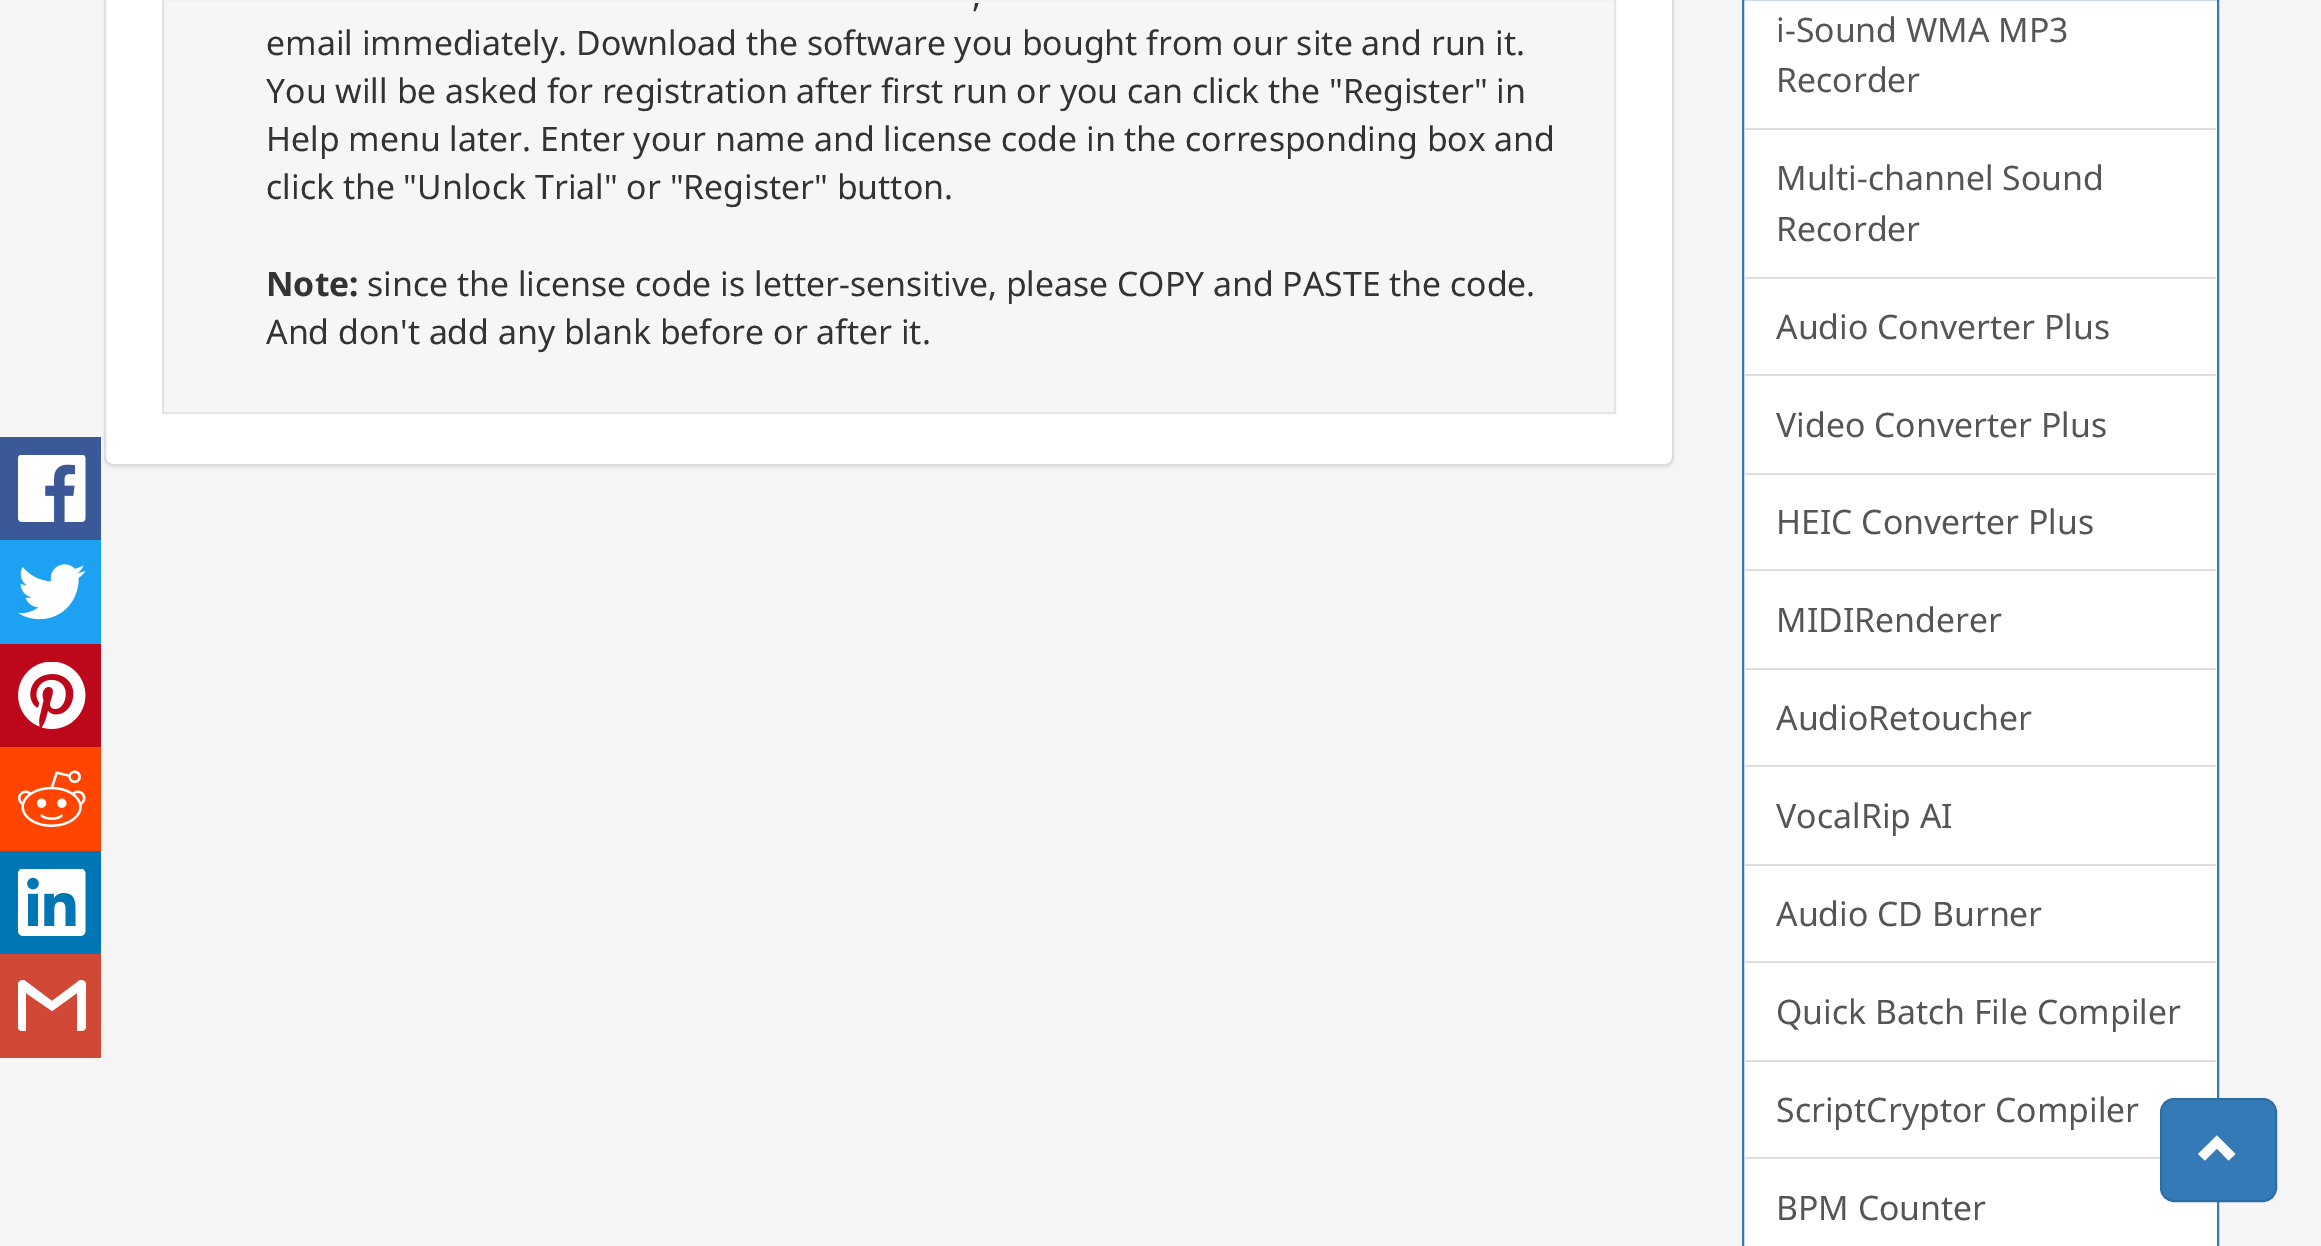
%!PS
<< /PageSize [2321 1246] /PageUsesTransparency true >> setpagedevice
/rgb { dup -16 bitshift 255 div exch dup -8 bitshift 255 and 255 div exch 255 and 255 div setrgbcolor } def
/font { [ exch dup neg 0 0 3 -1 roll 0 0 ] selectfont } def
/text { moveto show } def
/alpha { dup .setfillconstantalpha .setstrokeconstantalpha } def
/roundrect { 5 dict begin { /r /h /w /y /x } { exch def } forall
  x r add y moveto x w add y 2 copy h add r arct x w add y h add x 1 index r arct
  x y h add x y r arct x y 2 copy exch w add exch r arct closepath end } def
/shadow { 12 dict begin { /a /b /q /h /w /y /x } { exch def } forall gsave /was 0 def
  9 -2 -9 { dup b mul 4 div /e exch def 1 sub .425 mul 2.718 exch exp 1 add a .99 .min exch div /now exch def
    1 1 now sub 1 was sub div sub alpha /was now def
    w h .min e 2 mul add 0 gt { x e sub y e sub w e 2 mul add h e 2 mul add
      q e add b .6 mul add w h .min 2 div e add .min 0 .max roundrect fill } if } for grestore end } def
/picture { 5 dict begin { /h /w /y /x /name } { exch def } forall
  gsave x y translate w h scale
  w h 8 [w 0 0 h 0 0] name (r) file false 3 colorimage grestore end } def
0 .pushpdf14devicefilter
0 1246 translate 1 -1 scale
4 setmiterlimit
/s1 { /NotoSans-Regular 33.75 font 16#333333 rgb } def
/s2 { /NotoSans-Bold 33.75 font 16#333333 rgb } def
/s3 { /NotoSans-Regular 33.75 font 16#555555 rgb } def
16#F5F5F5 rgb
0 0 2321 1246 rectfill
16#000000 rgb
104 -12 1570 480 9 1 0.05 shadow
16#3B5998 rgb
0 437 101 103 rectfill
(pic1.raw) 18 455 68 67 picture
16#1DA1F2 rgb
0 540 101 104 rectfill
(pic2.raw) 18 564 68 56 picture
16#BD081C rgb
0 644 101 103 rectfill
(pic3.raw) 18 662 68 67 picture
16#FF4500 rgb
0 747 101 104 rectfill
(pic4.raw) 18 770 68 57 picture
16#0077B5 rgb
0 851 101 103 rectfill
(pic5.raw) 18 869 68 67 picture
16#D14836 rgb
0 954 101 104 rectfill
gsave
18 972 68 68 rectclip
16#FFFFFF rgb
86 985 moveto 86 1027 lineto 86 1029 84 1031 81 1031 curveto 77 1031 lineto 77 993 lineto 52 1011 lineto 26 993 lineto 26 1031 lineto 17 1031 18 1030 18 1020 curveto 18 992 lineto 18 986 16 980 24 980 curveto 52 1001 lineto 80 980 lineto 83 980 86 981 86 985 curveto closepath fill
grestore
16#FFFFFF rgb
105 -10 1568 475 8 roundrect gsave fill grestore
16#DDDDDD rgb
2 setlinewidth
stroke
16#F6F6F6 rgb
163 -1 moveto 1615 -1 lineto 1615 413 lineto 163 413 lineto closepath gsave fill grestore
16#E4E4E4 rgb
stroke
s1
(,) 972 7 text
(email immediately. Download the software you bought from our site and run it.) 266 55 text
(You will be asked for registration after first run or you can click the "Register" in) 266 103 text
(Help menu later. Enter your name and license code in the corresponding box and) 266 151 text
(click the "Unlock Trial" or "Register" button.) 266 199 text
s2
(Note:) 266 296 text
s1
(since the license code is letter-sensitive, please COPY and PASTE the code.) 367 296 text
(And don't add any blank before or after it.) 266 344 text
16#FFFFFF rgb
1743 -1 moveto 2218 -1 lineto 2218 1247 lineto 1743 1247 lineto closepath gsave fill grestore
16#337AB7 rgb
stroke
16#DDDDDD rgb
1744 128 472 2 rectfill
s3
(i-Sound WMA MP3) 1776 42 text
(Recorder) 1776 92 text
16#DDDDDD rgb
1744 277 472 2 rectfill
s3
(Multi-channel Sound) 1776 190 text
(Recorder) 1776 241 text
16#DDDDDD rgb
1744 374 472 2 rectfill
s3
(Audio Converter Plus) 1776 339 text
16#DDDDDD rgb
1744 473 472 2 rectfill
s3
(Video Converter Plus) 1776 437 text
16#DDDDDD rgb
1744 569 472 2 rectfill
s3
(HEIC Converter Plus) 1776 534 text
16#DDDDDD rgb
1744 668 472 2 rectfill
s3
(MIDIRenderer) 1776 632 text
16#DDDDDD rgb
1744 765 472 2 rectfill
s3
(AudioRetoucher) 1776 730 text
16#DDDDDD rgb
1744 864 472 2 rectfill
s3
(VocalRip AI) 1776 828 text
16#DDDDDD rgb
1744 961 472 2 rectfill
s3
(Audio CD Burner) 1776 926 text
16#DDDDDD rgb
1744 1060 472 2 rectfill
s3
(Quick Batch File Compiler) 1776 1024 text
16#DDDDDD rgb
1744 1157 416 2 rectfill
s3
(ScriptCryptor Compiler) 1776 1122 text
(BPM Counter) 1776 1220 text
16#337AB7 rgb
2161 1099 115 102 13 roundrect gsave fill grestore
16#2E6DA4 rgb
stroke
16#FFFFFF rgb
2235.5 1154 moveto 2228.5 1160.5 lineto 2217 1148.5 lineto 2205 1160.5 lineto 2198 1154 lineto 2217 1135.5 lineto closepath fill
.poppdf14devicefilter showpage
